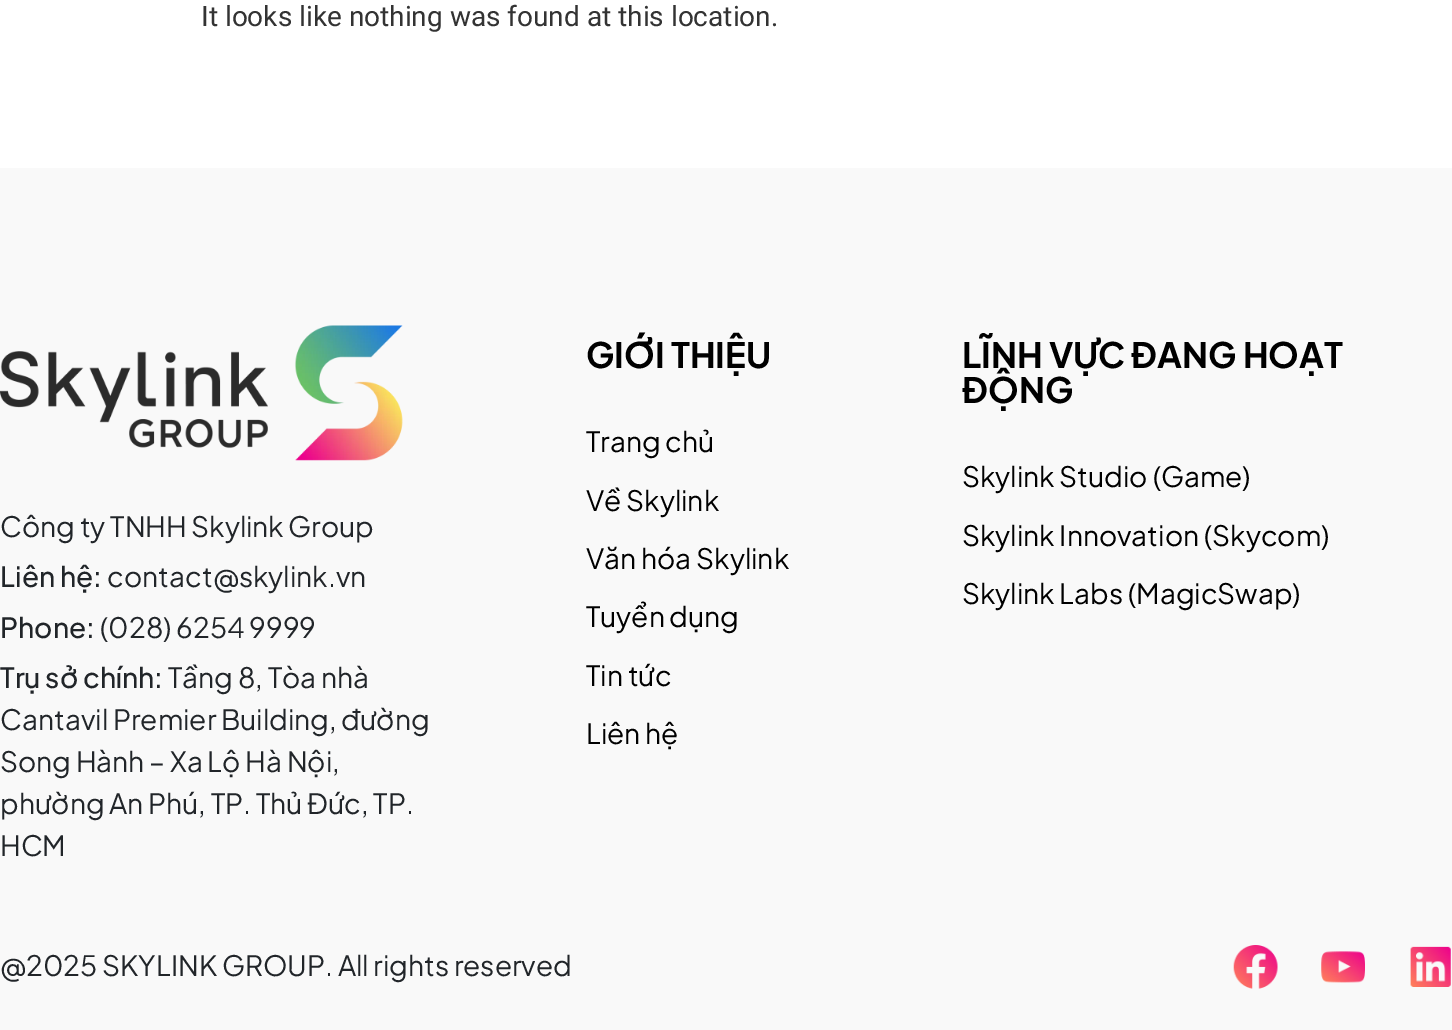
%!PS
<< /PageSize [1452 1030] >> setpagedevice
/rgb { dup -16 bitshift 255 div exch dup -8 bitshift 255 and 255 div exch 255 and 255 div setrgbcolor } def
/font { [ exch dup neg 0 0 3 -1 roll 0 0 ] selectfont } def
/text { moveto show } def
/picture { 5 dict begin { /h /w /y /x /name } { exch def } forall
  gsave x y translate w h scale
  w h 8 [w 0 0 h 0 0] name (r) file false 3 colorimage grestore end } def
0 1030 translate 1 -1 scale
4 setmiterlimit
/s1 { /Roboto-Regular 28 font 16#333333 rgb } def
/s2 { /PlusJakartaSans-Bold 35 font 16#000000 rgb } def
/s3 { /PlusJakartaSans-Regular 28 font 16#000000 rgb } def
/s4 { /PlusJakartaSans-Regular 28 font 16#212529 rgb } def
/s5 { /PlusJakartaSans-Medium 28 font 16#212529 rgb } def
16#FFFFFF rgb
0 0 1452 1030 rectfill
s1
(It looks like nothing was found at this location.) 201 26 text
16#F9F9F9 rgb
0 168 1452 862 rectfill
s2
(GIỚI THIỆU) 586 368 text
s3
(Trang chủ) 586 452 text
(Về Skylink) 586 511 text
(Văn hóa Skylink) 586 569 text
(Tuyển dụng) 586 627 text
(Tin tức) 586 686 text
(Liên hệ) 586 744 text
s2
(LĨNH VỰC ĐANG HOẠT) 962 368 text
(ĐỘNG) 962 403 text
s3
(Skylink Studio \(Game\)) 962 487 text
(Skylink Innovation \(Skycom\)) 962 546 text
(Skylink Labs \(MagicSwap\)) 962 604 text
(pic1.raw) 0 325 403 136 picture
s4
(Công ty TNHH Skylink Group) 0 537 text
s5
(Liên hệ:) 0 587 text
s4
(contact@skylink.vn) 107 587 text
s5
(Phone:) 0 638 text
s4
(\(028\) 6254 9999) 100 638 text
s5
(Trụ sở chính:) 0 688 text
s4
(Tầng 8, Tòa nhà) 168 688 text
(Cantavil Premier Building, đường) 0 730 text
(Song Hành – Xa Lộ Hà Nội,) 0 772 text
(phường An Phú, TP. Thủ Đức, TP.) 0 814 text
(HCM) 0 856 text
(@2025 SKYLINK GROUP. All rights reserved) 0 976 text
(pic2.raw) 1233 945 45 44 picture
(pic3.raw) 1321 951 44 32 picture
(pic4.raw) 1410 946 41 41 picture
showpage
